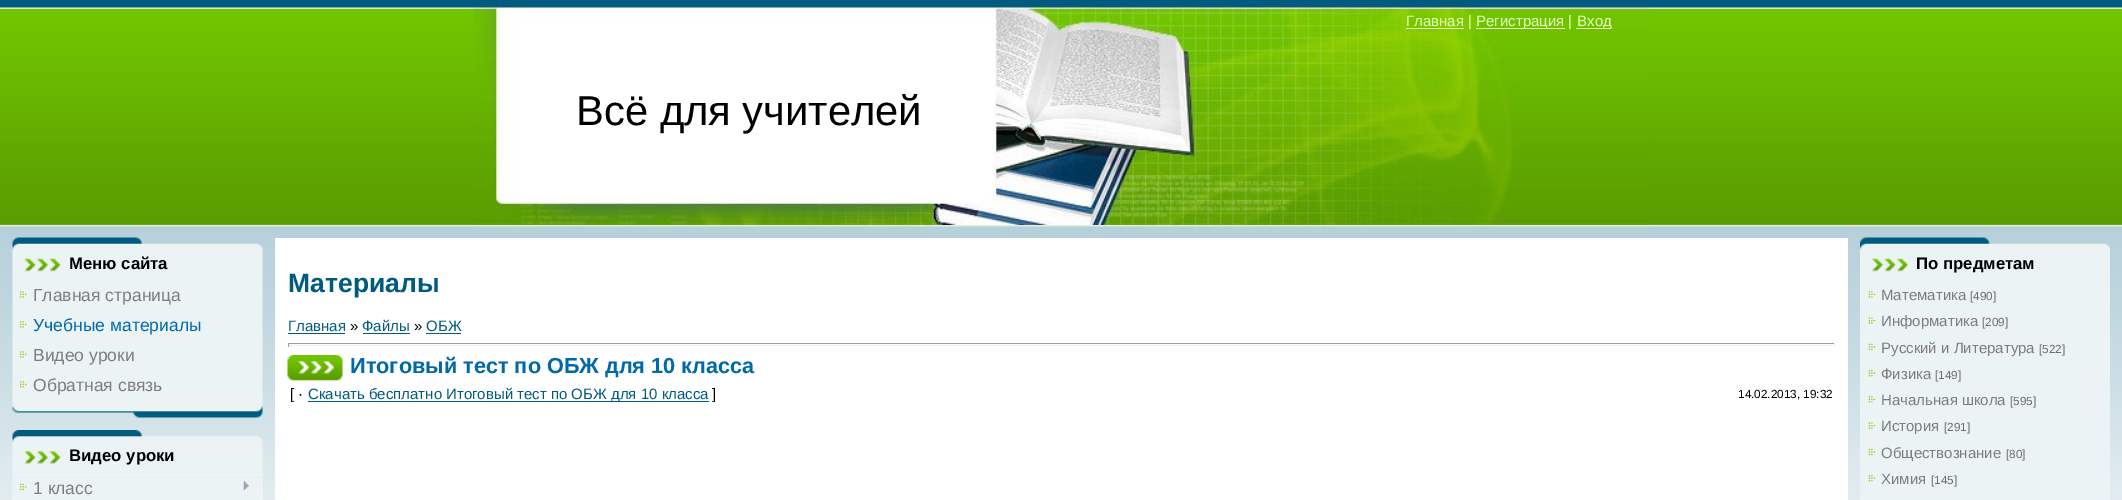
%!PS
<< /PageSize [2122 500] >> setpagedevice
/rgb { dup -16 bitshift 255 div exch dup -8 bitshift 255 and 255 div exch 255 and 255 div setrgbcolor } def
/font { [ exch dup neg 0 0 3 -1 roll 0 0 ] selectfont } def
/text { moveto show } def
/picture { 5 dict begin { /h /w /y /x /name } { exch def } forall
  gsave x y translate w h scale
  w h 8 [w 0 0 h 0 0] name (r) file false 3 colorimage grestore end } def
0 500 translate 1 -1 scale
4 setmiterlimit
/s1 { /LiberationSans-Regular 15 font 16#E4FFBD rgb } def
/s2 { /LiberationSans-Regular 41.75 font 16#000000 rgb } def
/s3 { /LiberationSans-Bold 16.75 font 16#000000 rgb } def
/s4 { /LiberationSans-Regular 17.5 font 16#7D7D7D rgb } def
/s5 { /LiberationSans-Regular 17.5 font 16#0069A9 rgb } def
/s6 { /LiberationSans-Bold 26.5 font 16#005B7F rgb } def
/s7 { /LiberationSans-Regular 15 font 16#005B7F rgb } def
/s8 { /LiberationSans-Regular 15 font 16#000000 rgb } def
/s9 { /LiberationSans-Bold 21.7 font 16#0069A9 rgb } def
/s10 { /LiberationSans-Regular 11.75 font 16#000000 rgb } def
/s11 { /LiberationSans-Regular 15 font 16#7D7D7D rgb } def
/s12 { /LiberationSans-Regular 11.75 font 16#6E6E6E rgb } def
16#FFFFFF rgb
0 0 2122 500 rectfill
(pic1.raw) 0 0 2122 500 picture
(pic2.raw) 473 0 1176 225 picture
16#E4FFBD rgb
1406 28 58 1 rectfill
s1
(Главная |) 1406 26 text
1476 28 89 1 rectfill
(Регистрация |) 1476 26 text
1576 28 35 1 rectfill
(Вход) 1577 26 text
s2
(Всё для учителей) 576 125 text
(pic3.raw) 12 237 251 48 picture
s3
(Меню сайта) 69 269 text
(pic4.raw) 12 285 251 133 picture
(pic5.raw) 19 291 8 7 picture
s4
(Главная страница) 33 301 text
(pic6.raw) 19 321 8 7 picture
s5
(Учебные материалы) 33 331 text
(pic6.raw) 19 351 8 7 picture
s4
(Видео уроки) 33 361 text
(pic6.raw) 19 381 8 7 picture
(Обратная связь) 33 391 text
(pic7.raw) 12 430 251 48 picture
s3
(Видео уроки) 69 461 text
16#ECF3F5 rgb
12 478 251 22 rectfill
(pic8.raw) 19 483 8 8 picture
s4
(1 класс) 33 494 text
(pic9.raw) 243 481 6 9 picture
16#FFFFFF rgb
275 238 1573 262 rectfill
s6
(Материалы) 288 292 text
s7
(Главная) 288 331 text
288 333 57 1 rectfill
s8
(») 350 331 text
s7
(Файлы) 362 331 text
363 333 47 1 rectfill
s8
(») 414 331 text
s7
(ОБЖ) 426 331 text
426 333 35 1 rectfill
16#9F9F9F rgb
288 343 1547 1 rectfill
16#EEEEEE rgb
1834 343 1 4 rectfill
288 345 1547 1 rectfill
16#9F9F9F rgb
288 343 1 4 rectfill
(pic10.raw) 287 355 56 27 picture
s9
(Итоговый тест по ОБЖ для 10 класса) 350 373 text
s8
([ ·) 290 399 text
16#005B7F rgb
308 401 401 1 rectfill
(Скачать бесплатно Итоговый тест по ОБЖ для 10 класса) 308 399 text
s8
(]) 712 399 text
s10
(14.02.2013, 19:32) 1738 398 text
(pic11.raw) 1860 237 250 48 picture
s3
(По предметам) 1916 269 text
16#ECF3F5 rgb
1860 285 250 215 rectfill
(pic12.raw) 1868 291 8 7 picture
s11
(Математика) 1881 300 text
s12
([490]) 1970 300 text
(pic13.raw) 1868 317 8 7 picture
s11
(Информатика) 1881 326 text
s12
([209]) 1982 326 text
(pic14.raw) 1868 343 8 8 picture
s11
(Русский и Литература) 1881 353 text
s12
([522]) 2039 353 text
(pic15.raw) 1868 369 8 8 picture
s11
(Физика) 1881 379 text
s12
([149]) 1935 379 text
(pic16.raw) 1868 396 8 7 picture
s11
(Начальная школа) 1881 405 text
s12
([595]) 2010 405 text
(pic13.raw) 1868 422 8 7 picture
s11
(История) 1881 431 text
s12
([291]) 1944 431 text
(pic14.raw) 1868 448 8 8 picture
s11
(Обществознание) 1881 458 text
s12
([80]) 2006 458 text
(pic15.raw) 1868 474 8 8 picture
s11
(Химия) 1881 484 text
s12
([145]) 1931 484 text
showpage
